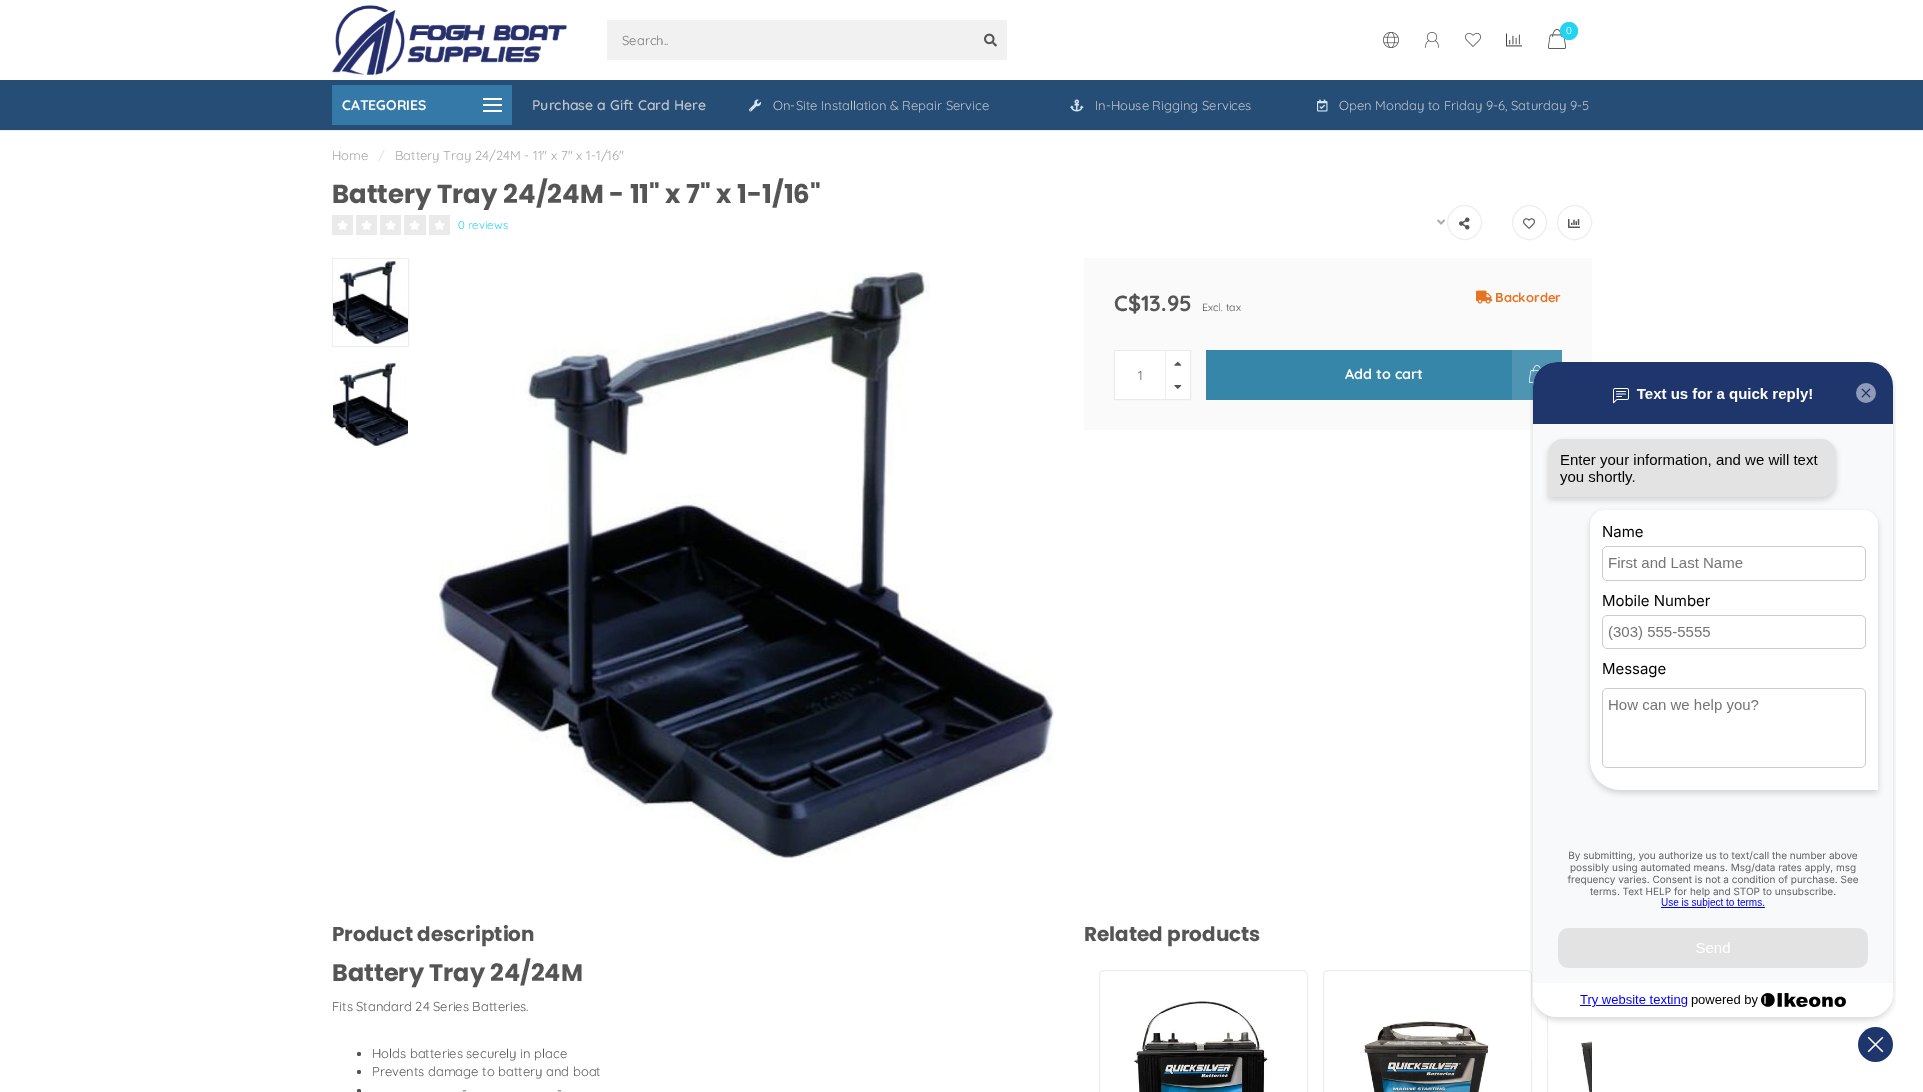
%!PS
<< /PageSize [1923 1092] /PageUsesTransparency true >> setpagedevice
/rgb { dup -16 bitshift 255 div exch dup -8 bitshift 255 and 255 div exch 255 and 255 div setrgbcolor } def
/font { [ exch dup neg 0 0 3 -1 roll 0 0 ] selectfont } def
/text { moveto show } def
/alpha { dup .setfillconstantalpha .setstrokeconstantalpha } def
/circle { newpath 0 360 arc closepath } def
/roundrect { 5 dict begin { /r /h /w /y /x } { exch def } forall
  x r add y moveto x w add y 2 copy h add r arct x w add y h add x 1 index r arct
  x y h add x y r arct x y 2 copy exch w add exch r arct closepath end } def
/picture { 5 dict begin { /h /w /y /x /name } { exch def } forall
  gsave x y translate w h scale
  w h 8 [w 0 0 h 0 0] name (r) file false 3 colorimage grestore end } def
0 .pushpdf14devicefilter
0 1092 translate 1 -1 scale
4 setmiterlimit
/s1 { /Quicksand-Regular 10 font 16#FFFFFF rgb } def
/s2 { /Quicksand-Regular 13 font 16#757575 rgb } def
/s3 { /Quicksand-Bold 14 font 16#FFFFFF rgb } def
/s4 { /Quicksand-SemiBold 14 font 16#BEC3CA rgb } def
/s5 { /Quicksand-Regular 13 font 16#C6C9CE rgb } def
/s6 { /Quicksand-Regular 13 font 16#A5A5A5 rgb } def
/s7 { /Quicksand-Regular 13 font 16#DDDDDD rgb } def
/s8 { /Poppins-Bold 26 font 16#555555 rgb } def
/s9 { /Quicksand-Regular 11.5 font 16#24D3F2 rgb } def
/s10 { /Quicksand-Bold 22 font 16#555555 rgb } def
/s11 { /Quicksand-Regular 10.5 font 16#555555 rgb } def
/s12 { /Quicksand-Bold 13 font 16#E67423 rgb } def
/s13 { /Quicksand-Regular 13 font 16#555555 rgb } def
/s14 { /Quicksand-Bold 14.25 font 16#FFFFFF rgb } def
/s15 { /Poppins-Bold 20 font 16#555555 rgb } def
/s16 { /Poppins-Bold 24 font 16#555555 rgb } def
16#FFFFFF rgb
0 0 1923 1092 rectfill
(pic1.raw) 332 5 235 70 picture
(pic2.raw) 1548 29 18 20 picture
16#24D3F2 rgb
1569 31 9 circle fill
s1
(0) 1566 34 text
(pic3.raw) 1383 32 16 16 picture
(pic4.raw) 1424 32 16 16 picture
(pic5.raw) 1465 33 16 14 picture
(pic6.raw) 1506 33 16 14 picture
16#F1F1F2 rgb
607 20 400 40 rectfill
s2
(Search..) 622 45 text
(pic7.raw) 984 33 13 14 picture
16#254D76 rgb
0 80 1923 50 rectfill
16#EEEEEE rgb
0 130 1923 1 rectfill
16#3579A9 rgb
332 85 180 40 rectfill
s3
(CATEGORIES) 342 110 text
483 98 19 2 rectfill
483 104 19 2 rectfill
483 110 19 2 rectfill
s4
(Purchase a Gift Card Here) 532 110 text
(pic8.raw) 749 99 12 13 picture
s5
(On-Site Installation & Repair Service) 773 110 text
(pic9.raw) 1070 99 14 13 picture
(In-House Rigging Services) 1095 110 text
(pic10.raw) 1317 99 11 13 picture
(Open Monday to Friday 9-6, Saturday 9-5) 1339 110 text
s6
(Home) 332 160 text
s7
(/) 378 160 text
s6
(Battery Tray 24/24M - 11" x 7" x 1-1/16") 395 160 text
s8
(Battery Tray 24/24M - 11" x 7" x 1-1/16") 332 203 text
16#EAEAEA rgb
332 215 21 20 rectfill
(pic11.raw) 337 220 11 10 picture
356 215 21 20 rectfill
(pic11.raw) 361 220 11 10 picture
380 215 21 20 rectfill
(pic11.raw) 385 220 11 10 picture
404 215 22 20 rectfill
(pic11.raw) 409 220 11 10 picture
429 215 21 20 rectfill
(pic11.raw) 434 220 11 10 picture
s9
(0 reviews) 458 229 text
(pic12.raw) 1437 219 9 6 picture
16#EEEEEE rgb
1464.5 222.5 17 circle stroke
(pic13.raw) 1459 217 11 13 picture
1529.5 222.5 17 circle stroke
(pic14.raw) 1523 218 12 11 picture
1574.5 222.5 17 circle stroke
(pic15.raw) 1568 219 12 9 picture
332.5 258.5 76 88 rectstroke
(pic16.raw) 333 259 75 87 picture
(pic16.raw) 333 361 75 87 picture
(pic17.raw) 439 272 615 591 picture
16#FAFAFA rgb
1084 258 508 172 rectfill
s10
(C$13.95) 1114 311 text
s11
(Excl. tax) 1202 311 text
(pic18.raw) 1476 290 17 14 picture
s12
(Backorder) 1495 302 text
16#EAEAEA rgb
1114.5 350.5 76 49 rectstroke
16#FFFFFF rgb
1115 351 75 48 rectfill
s13
(1) 1138 380 text
0.17 alpha
16#9B9B9B rgb
1165 376 moveto 1165 351 lineto 1166 351 lineto 1166 375 lineto closepath fill
1 alpha
(pic19.raw) 1174 361 8 5 picture
16#EEEEEE rgb
1165 374 1 25 rectfill
(pic20.raw) 1174 385 8 4 picture
16#3586A9 rgb
1206 350 306 50 rectfill
s14
(Add to cart) 1345 379 text
16#4D95B3 rgb
1512 350 50 50 rectfill
(pic21.raw) 1528 365 13 18 picture
s15
(Product description) 332 941 text
s16
(Battery Tray 24/24M) 332 981 text
s13
(Fits Standard 24 Series Batteries.) 332 1011 text
359 1054 2 circle fill
(Holds batteries securely in place) 372 1058 text
359 1072 2 circle fill
(Prevents damage to battery and boat) 372 1076 text
359 1091 2 circle fill
(-) 462 1095 text
(-) 557 1095 text
s15
(Related products) 1084 941 text
16#EEEEEE rgb
1099.5 970.5 208 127 4.5 roundrect stroke
(pic22.raw) 1133 1001 135 91 picture
1323.5 970.5 208 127 4.5 roundrect stroke
(pic23.raw) 1361 1021 129 71 picture
gsave
1084 960 508 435 rectclip
1547.5 970.5 208 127 4.5 roundrect stroke
grestore
(pic24.raw) 1581 1041 11 51 picture
(pic25.raw) 1530 362 366 700 picture
.poppdf14devicefilter showpage
